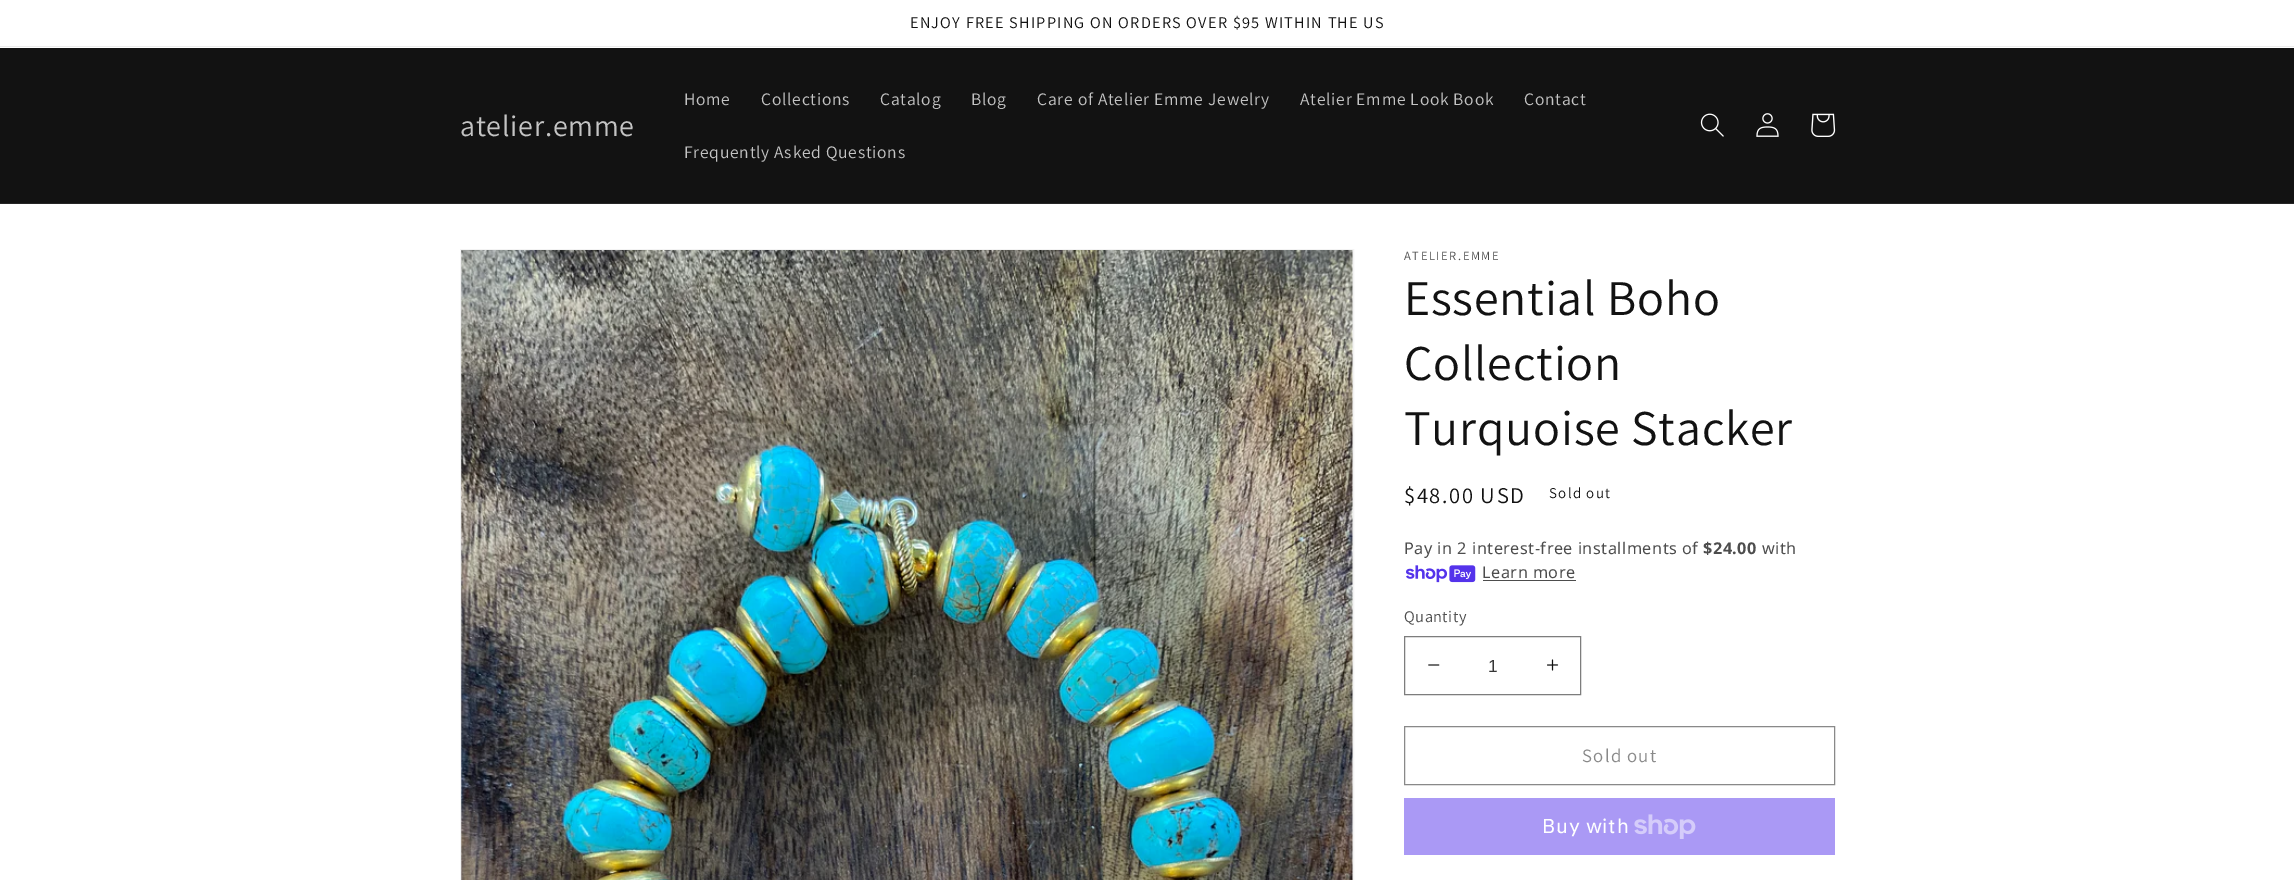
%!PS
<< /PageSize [2294 880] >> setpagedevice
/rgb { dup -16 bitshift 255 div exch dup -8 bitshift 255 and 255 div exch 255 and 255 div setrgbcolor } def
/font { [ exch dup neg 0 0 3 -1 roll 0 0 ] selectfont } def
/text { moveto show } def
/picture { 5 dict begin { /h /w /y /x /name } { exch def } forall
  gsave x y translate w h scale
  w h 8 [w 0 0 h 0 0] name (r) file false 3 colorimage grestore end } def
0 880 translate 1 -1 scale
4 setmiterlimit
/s1 { /LiberationSans-Regular 17.5 font 16#363636 rgb } def
16#FFFFFF rgb
0 0 2294 880 rectfill
16#ECECEC rgb
0 46 2294 1 rectfill
/Assistant-Regular 16.25 font
16#121212 rgb
910 28 moveto 1.25 0 (ENJOY FREE SHIPPING ON ORDERS OVER $95 WITHIN THE US) ashow
0 48 2294 155 rectfill
16#252525 rgb
0 203 2294 1 rectfill
/Assistant-Regular 30 font
16#C4C4C4 rgb
460 136 moveto 0.75 0 (atelier.emme) ashow
/Assistant-Regular 17.5 font
684 105 moveto 0.75 0 (Home) ashow
761 105 moveto 0.75 0 (Collections) ashow
880 105 moveto 0.75 0 (Catalog) ashow
971 105 moveto 0.75 0 (Blog) ashow
1037 105 moveto 0.75 0 (Care of Atelier Emme Jewelry) ashow
1300 105 moveto 0.75 0 (Atelier Emme Look Book) ashow
1524 105 moveto 0.75 0 (Contact) ashow
684 158 moveto 0.75 0 (Frequently Asked Questions) ashow
(pic1.raw) 1700 113 24 24 picture
(pic2.raw) 1756 113 23 24 picture
(pic3.raw) 1811 113 25 24 picture
16#F3F3F3 rgb
460.5 249.5 893 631 rectstroke
(pic4.raw) 461 250 892 630 picture
/Assistant-Regular 12.5 font
16#4D4D4D rgb
1404 260 moveto 1.6 0 (ATELIER.EMME) ashow
/Assistant-Regular 50 font
16#121212 rgb
1404 315 moveto 0.75 0 (Essential Boho) ashow
1404 380 moveto 0.75 0 (Collection) ashow
1404 445 moveto 0.75 0 (Turquoise Stacker) ashow
/Assistant-Regular 22.5 font
1404 503 moveto 1.6 0 ($48.00 USD) ashow
/Assistant-Regular 15 font
1549 498 moveto 1.25 0 (Sold out) ashow
/NotoSans-Regular 16.25 font
16#4D4D4D rgb
1404 554 moveto 0.5 0 (Pay in 2 interest-free installments of) ashow
/NotoSans-Bold 16.25 font
1703 554 moveto 0.5 0 ($24.00) ashow
/NotoSans-Regular 16.25 font
1762 554 moveto 0.5 0 (with) ashow
(pic5.raw) 1406 565 70 18 picture
1482 578 moveto 0.5 0 (Learn more) ashow
1483 580 93 1 rectfill
/Assistant-Regular 16.25 font
1404 622 moveto 0.5 0 (Quantity) ashow
(pic6.raw) 1428 664 12 2 picture
(pic7.raw) 1547 659 12 12 picture
16#7D7D7D rgb
1404.5 636.5 176 58 rectstroke
s1
(1) 1488 672 text
16#898989 rgb
1404.5 726.5 430 58 rectstroke
/Assistant-Regular 18.75 font
1582 762 moveto 1.25 0 (Sold out) ashow
16#AA99F5 rgb
1404 798 431 57 rectfill
/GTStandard-Regular 20 font
16#FFFFFF rgb
1542 833 moveto 0.75 0 (Buy with) ashow
(pic8.raw) 1634 814 62 25 picture
showpage
